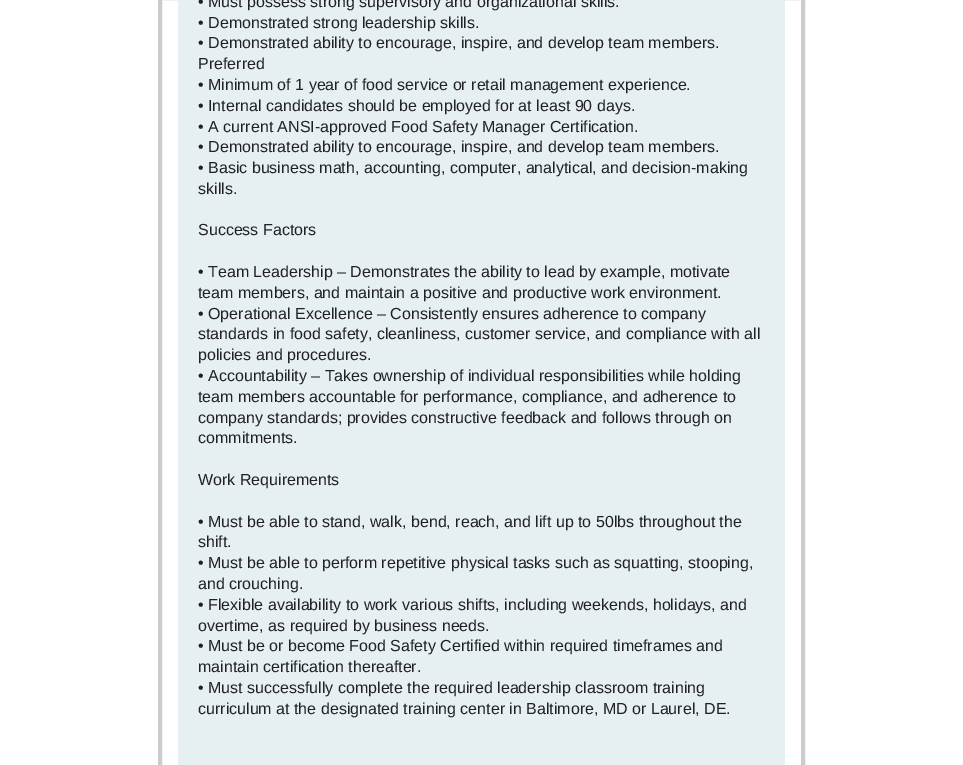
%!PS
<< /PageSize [963 765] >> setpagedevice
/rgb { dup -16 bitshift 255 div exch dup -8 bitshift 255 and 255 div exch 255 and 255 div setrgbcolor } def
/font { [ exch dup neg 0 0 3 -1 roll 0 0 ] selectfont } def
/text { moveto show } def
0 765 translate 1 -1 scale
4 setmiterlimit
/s1 { /LiberationSans-Regular 16 font 16#212124 rgb } def
16#FFFFFF rgb
0 0 963 765 rectfill
16#CCCCCC rgb
4 setlinewidth
160 -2 643 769 rectstroke
16#E6F0F2 rgb
178 0 607 765 rectfill
s1
(• Must possess strong supervisory and organizational skills.) 198 7 text
(• Demonstrated strong leadership skills.) 198 28 text
(• Demonstrated ability to encourage, inspire, and develop team members.) 198 48 text
(Preferred) 198 69 text
(• Minimum of 1 year of food service or retail management experience.) 198 90 text
(• Internal candidates should be employed for at least 90 days.) 198 111 text
(• A current ANSI-approved Food Safety Manager Certification.) 198 132 text
(• Demonstrated ability to encourage, inspire, and develop team members.) 198 152 text
(• Basic business math, accounting, computer, analytical, and decision-making) 198 173 text
(skills.) 198 194 text
(Success Factors) 198 235 text
(• Team Leadership – Demonstrates the ability to lead by example, motivate) 198 277 text
(team members, and maintain a positive and productive work environment.) 198 298 text
(• Operational Excellence – Consistently ensures adherence to company) 198 319 text
(standards in food safety, cleanliness, customer service, and compliance with all) 198 339 text
(policies and procedures.) 198 360 text
(• Accountability – Takes ownership of individual responsibilities while holding) 198 381 text
(team members accountable for performance, compliance, and adherence to) 198 402 text
(company standards; provides constructive feedback and follows through on) 198 423 text
(commitments.) 198 443 text
(Work Requirements) 198 485 text
(• Must be able to stand, walk, bend, reach, and lift up to 50lbs throughout the) 198 527 text
(shift.) 198 547 text
(• Must be able to perform repetitive physical tasks such as squatting, stooping,) 198 568 text
(and crouching.) 198 589 text
(• Flexible availability to work various shifts, including weekends, holidays, and) 198 610 text
(overtime, as required by business needs.) 198 631 text
(• Must be or become Food Safety Certified within required timeframes and) 198 651 text
(maintain certification thereafter.) 198 672 text
(• Must successfully complete the required leadership classroom training) 198 693 text
(curriculum at the designated training center in Baltimore, MD or Laurel, DE.) 198 714 text
showpage
